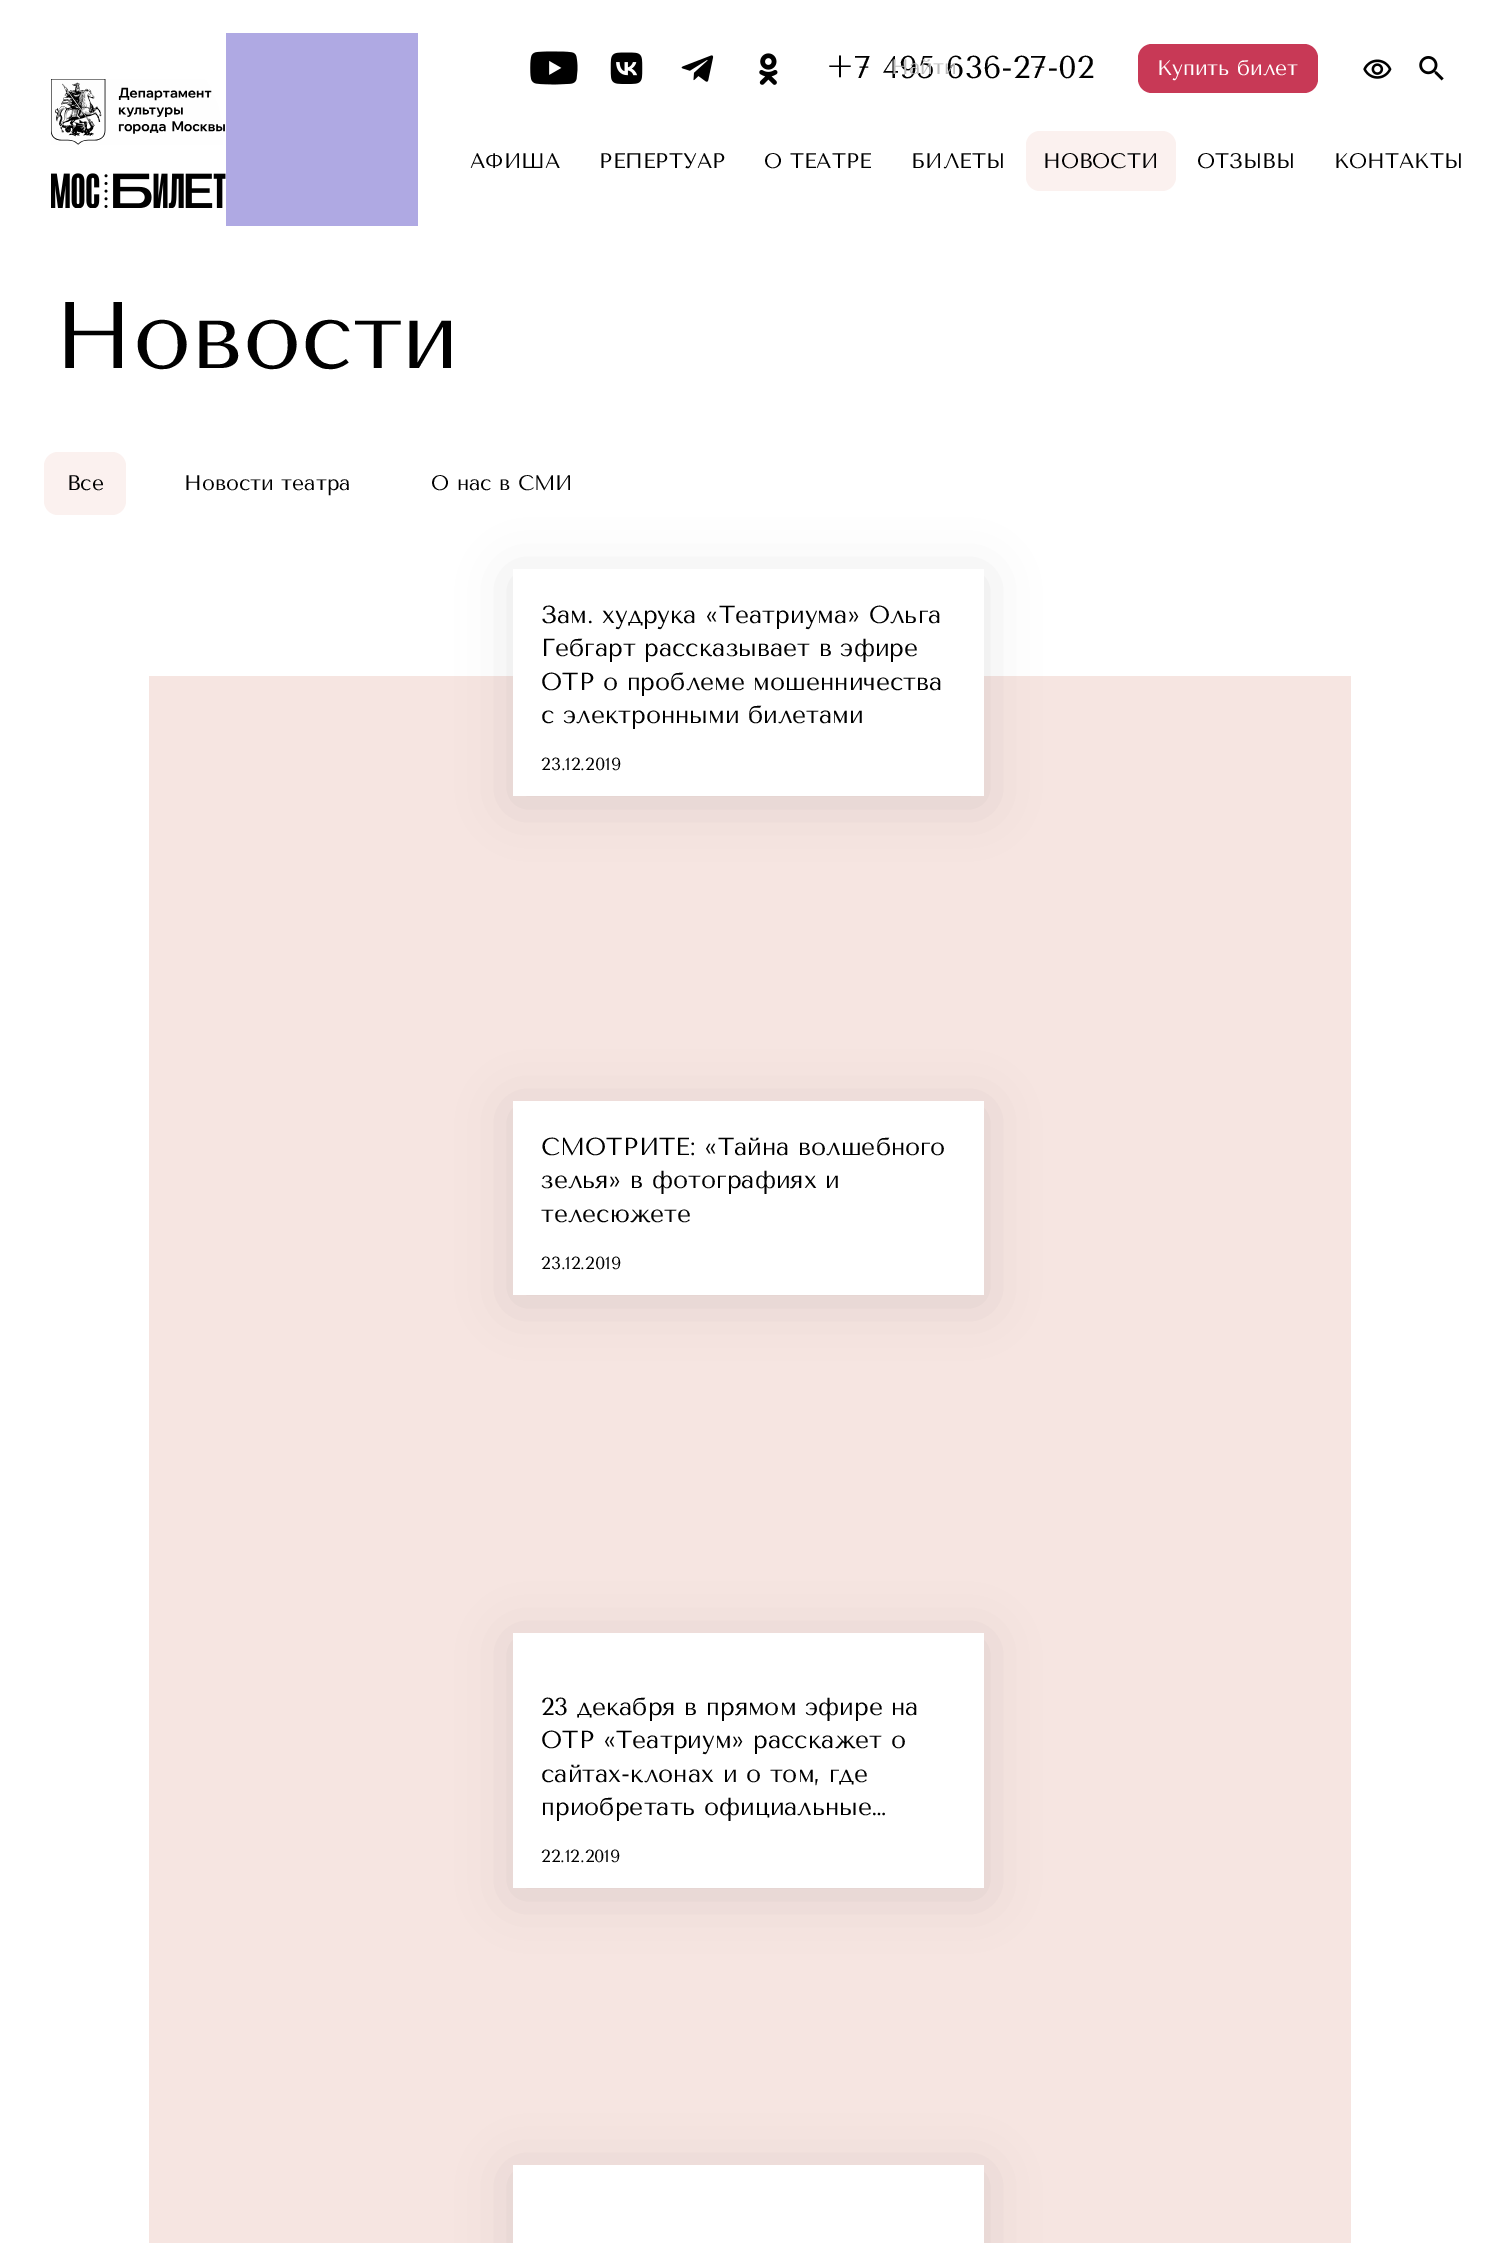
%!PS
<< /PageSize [1496 2243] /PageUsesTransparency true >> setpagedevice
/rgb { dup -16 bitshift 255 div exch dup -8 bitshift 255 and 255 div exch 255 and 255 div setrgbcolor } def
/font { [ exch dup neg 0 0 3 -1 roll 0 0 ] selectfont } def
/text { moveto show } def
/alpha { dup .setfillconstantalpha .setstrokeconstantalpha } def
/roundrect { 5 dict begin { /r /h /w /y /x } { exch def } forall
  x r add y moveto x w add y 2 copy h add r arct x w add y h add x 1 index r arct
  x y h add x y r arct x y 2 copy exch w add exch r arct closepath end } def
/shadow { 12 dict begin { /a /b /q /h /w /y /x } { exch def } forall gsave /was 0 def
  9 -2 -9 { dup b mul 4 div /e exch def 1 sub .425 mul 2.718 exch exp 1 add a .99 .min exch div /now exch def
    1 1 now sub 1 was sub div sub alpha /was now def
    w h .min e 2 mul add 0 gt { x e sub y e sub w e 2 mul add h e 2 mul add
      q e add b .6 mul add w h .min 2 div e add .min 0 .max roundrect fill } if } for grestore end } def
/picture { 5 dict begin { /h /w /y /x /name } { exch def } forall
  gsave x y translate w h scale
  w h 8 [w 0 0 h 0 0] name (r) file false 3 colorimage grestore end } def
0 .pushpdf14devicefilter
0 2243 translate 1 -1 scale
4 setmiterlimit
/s1 { /TenorSans-Regular 31.5 font 16#000000 rgb } def
/s2 { /TenorSans-Regular 21 font 16#FFFFFF rgb } def
/s3 { /TenorSans-Regular 21 font 16#BCBCBC rgb } def
/s4 { /TenorSans-Regular 21 font 16#000000 rgb } def
/s5 { /TenorSans-Regular 94.5 font 16#000000 rgb } def
/s6 { /TenorSans-Regular 24.5 font 16#000000 rgb } def
/s7 { /TenorSans-Regular 17.5 font 16#000000 rgb } def
16#FFFFFF rgb
0 0 1496 2243 rectfill
(pic1.raw) 51 79 174 66 picture
(pic2.raw) 51 173 175 35 picture
16#AFA9E3 rgb
226 33 192 193 rectfill
(pic3.raw) 530 51 48 34 picture
(pic4.raw) 610 52 33 32 picture
(pic5.raw) 681 55 33 27 picture
(pic6.raw) 759 53 19 32 picture
s1
(+7 495 636-27-02) 826 78 text
16#C83956 rgb
1138 44 180 49 14 roundrect fill
s2
(Купить билет) 1157 75 text
s3
(Найти) 891 74 text
(pic7.raw) 1419 56 25 25 picture
(pic8.raw) 1363 59 29 20 picture
s4
(АФИША) 470 168 text
(РЕПЕРТУАР) 599 168 text
(О ТЕАТРЕ) 764 168 text
(БИЛЕТЫ) 911 168 text
16#FBF1EF rgb
1026 131 150 60 14 roundrect fill
s4
(НОВОСТИ) 1043 168 text
(ОТЗЫВЫ) 1197 168 text
(КОНТАКТЫ) 1334 168 text
s5
(Новости) 54 368 text
16#FBF1EF rgb
44 452 82 63 14 roundrect fill
s4
(Все) 67 490 text
(Новости театра) 184 490 text
(О нас в СМИ) 431 490 text
16#F6E5E1 rgb
149 676 1202 1567 rectfill
16#000000 rgb
513 576 471 227 0 26 0.1 shadow
16#FFFFFF rgb
513 569 471 227 rectfill
s6
(Зам. худрука «Театриума» Ольга) 541 623 text
(Гебгарт рассказывает в эфире) 541 656 text
(ОТР о проблеме мошенничества) 541 690 text
(с электронными билетами) 541 723 text
s7
(23.12.2019) 541 770 text
513 1108 471 194 0 26 0.1 shadow
16#FFFFFF rgb
513 1101 471 194 rectfill
s6
(СМОТРИТЕ: «Тайна волшебного) 541 1155 text
(зелья» в фотографиях и) 541 1188 text
(телесюжете) 541 1222 text
s7
(23.12.2019) 541 1269 text
513 1640 471 255 0 26 0.1 shadow
16#FFFFFF rgb
513 1633 471 255 rectfill
s6
(23 декабря в прямом эфире на) 541 1715 text
(ОТР «Театриум» расскажет о) 541 1748 text
(сайтах-клонах и о том, где) 541 1782 text
(приобретать официальные…) 541 1815 text
s7
(22.12.2019) 541 1862 text
513 2172 471 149 0 26 0.1 shadow
16#FFFFFF rgb
513 2165 471 78 rectfill
.poppdf14devicefilter showpage
